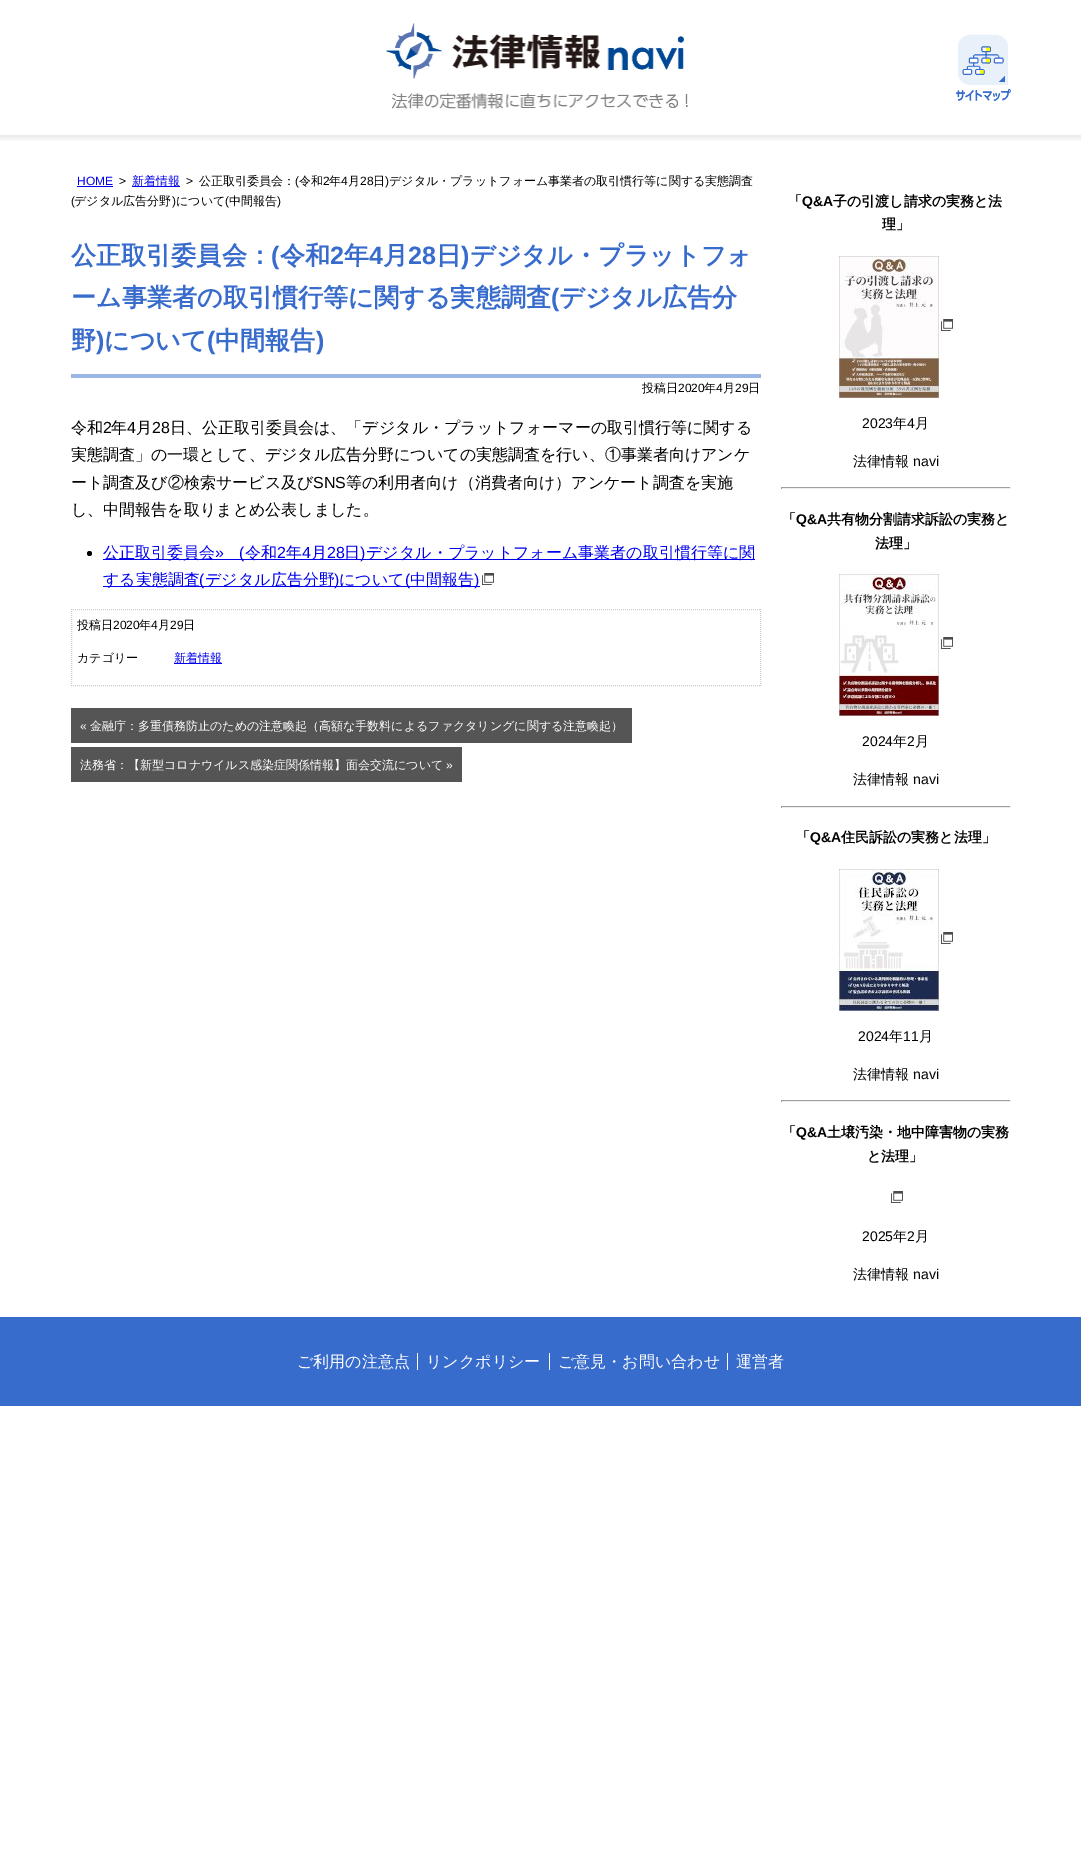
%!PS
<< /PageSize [1081 1862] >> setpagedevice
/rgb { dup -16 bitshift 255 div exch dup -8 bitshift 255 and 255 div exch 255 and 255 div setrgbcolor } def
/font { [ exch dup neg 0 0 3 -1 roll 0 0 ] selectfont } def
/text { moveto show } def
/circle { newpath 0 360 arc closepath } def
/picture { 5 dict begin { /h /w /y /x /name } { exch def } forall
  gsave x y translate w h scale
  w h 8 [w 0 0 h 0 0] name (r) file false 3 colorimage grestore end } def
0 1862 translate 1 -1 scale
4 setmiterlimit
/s1 { /LiberationSans-Regular 12 font 16#0000EE rgb } def
/s2 { /LiberationSans-Regular 12 font 16#000000 rgb } def
/s3 { /WenQuanYiZenHei-Medium 12 font 16#0000EE rgb } def
/s4 { /WenQuanYiZenHei-Medium 12 font 16#000000 rgb } def
/s5 { /WenQuanYiZenHei-Bold 25.1 font 16#376BCC rgb } def
/s6 { /LiberationSans-Bold 25.1 font 16#376BCC rgb } def
/s7 { /WenQuanYiZenHei-Medium 16 font 16#000000 rgb } def
/s8 { /LiberationSans-Regular 16 font 16#000000 rgb } def
/s9 { /WenQuanYiZenHei-Medium 16 font 16#0000EE rgb } def
/s10 { /LiberationSans-Regular 16 font 16#0000EE rgb } def
/s11 { /LiberationSans-Regular 12 font 16#FFFFFF rgb } def
/s12 { /WenQuanYiZenHei-Medium 12 font 16#FFFFFF rgb } def
/s13 { /WenQuanYiZenHei-Bold 14 font 16#000000 rgb } def
/s14 { /LiberationSans-Bold 14 font 16#000000 rgb } def
/s15 { /LiberationSans-Regular 14 font 16#000000 rgb } def
/s16 { /WenQuanYiZenHei-Medium 14 font 16#000000 rgb } def
/s17 { /WenQuanYiZenHei-Medium 16 font 16#FFFFFF rgb } def
16#FFFFFF rgb
0 0 1081 1862 rectfill
(pic1.raw) 0 135 1081 6 picture
(pic2.raw) 386 23 302 86 picture
(pic3.raw) 956 34 55 67 picture
s1
(HOME) 77 185 text
77 186 36 1 rectfill
s2
(>) 119 185 text
16#0000EE rgb
132 186 48 1 rectfill
s3
(新着情報) 132 185 text
s2
(>) 186 185 text
s4
(公正取引委員会：) 199 185 text
s2
(\() 295 185 text
s4
(令和) 299 185 text
s2
(2) 323 185 text
s4
(年) 329 185 text
s2
(4) 341 185 text
s4
(月) 348 185 text
s2
(28) 360 185 text
s4
(日) 373 185 text
s2
(\)) 385 185 text
s4
(デジタル・プラットフォーム事業者の取引慣行等に関する実態調査) 389 185 text
s2
(\() 71 205 text
s4
(デジタル広告分野) 74 205 text
s2
(\)) 172 205 text
s4
(について) 176 205 text
s2
(\() 225 205 text
s4
(中間報告) 229 205 text
s2
(\)) 277 205 text
16#9BB5E5 rgb
71 374 690 4 rectfill
s5
(公正取引委員会：) 71 264 text
s6
(\() 271 264 text
s5
(令和) 280 264 text
s6
(2) 330 264 text
s5
(年) 344 264 text
s6
(4) 369 264 text
s5
(月) 383 264 text
s6
(28) 408 264 text
s5
(日) 436 264 text
s6
(\)) 461 264 text
s5
(デジタル・プラットフォ) 470 264 text
(ーム事業者の取引慣行等に関する実態調査) 71 306 text
s6
(\() 551 306 text
s5
(デジタル広告分) 559 306 text
(野) 71 349 text
s6
(\)) 96 349 text
s5
(について) 104 349 text
s6
(\() 207 349 text
s5
(中間報告) 215 349 text
s6
(\)) 316 349 text
s4
(投稿日) 642 392 text
s2
(2020) 678 392 text
s4
(年) 704 392 text
s2
(4) 716 392 text
s4
(月) 723 392 text
s2
(29) 735 392 text
s4
(日) 748 392 text
s7
(令和) 71 433 text
s8
(2) 103 433 text
s7
(年) 111 433 text
s8
(4) 127 433 text
s7
(月) 136 433 text
s8
(28) 152 433 text
s7
(日、公正取引委員会は、「デジタル・プラットフォーマーの取引慣行等に関する) 170 433 text
(実態調査」の一環として、デジタル広告分野についての実態調査を行い、①事業者向けアンケ) 71 460 text
(ート調査及び②検索サービス及び) 71 488 text
s8
(SNS) 313 488 text
s7
(等の利用者向け（消費者向け）アンケート調査を実施) 346 488 text
(し、中間報告を取りまとめ公表しました。) 71 515 text
89.5 553.5 2.5 circle fill
16#0000EE rgb
103 559 652 1 rectfill
(公正取引委員会) 103 558 text
s10
(») 215 558 text
(\() 239 558 text
s9
(令和) 245 558 text
s10
(2) 277 558 text
s9
(年) 286 558 text
s10
(4) 302 558 text
s9
(月) 311 558 text
s10
(28) 327 558 text
s9
(日) 344 558 text
s10
(\)) 360 558 text
s9
(デジタル・プラットフォーム事業者の取引慣行等に関) 366 558 text
103 586 377 1 rectfill
(する実態調査) 103 585 text
s10
(\() 199 585 text
s9
(デジタル広告分野) 205 585 text
s10
(\)) 334 585 text
s9
(について) 339 585 text
s10
(\() 405 585 text
s9
(中間報告) 410 585 text
s10
(\)) 474 585 text
(pic4.raw) 482 573 12 12 picture
16#CCCCCC rgb
[1 1] 0 setdash
71 609.5 moveto 761 609.5 lineto stroke
760.5 609 moveto 760.5 686 lineto stroke
71 685.5 moveto 761 685.5 lineto stroke
71.5 609 moveto 71.5 686 lineto stroke
s4
(投稿日) 77 629 text
s2
(2020) 113 629 text
s4
(年) 139 629 text
s2
(4) 151 629 text
s4
(月) 158 629 text
s2
(29) 170 629 text
s4
(日) 183 629 text
(カテゴリー) 77 662 text
16#0000EE rgb
174 663 48 1 rectfill
(新着情報) 174 662 text
16#555555 rgb
71 708 561 35 rectfill
s11
(«) 80 730 text
s12
(金融庁：多重債務防止のための注意喚起（高額な手数料によるファクタリングに関する注意喚起）) 90 730 text
16#555555 rgb
71 747 391 35 rectfill
s12
(法務省：【新型コロナウイルス感染症関係情報】面会交流について) 80 769 text
s11
(») 446 769 text
s13
(「) 788 206 text
s14
(Q&A) 802 206 text
s13
(子の引渡し請求の実務と法) 833 206 text
(理」) 882 229 text
(pic5.raw) 839 256 100 142 picture
(pic4.raw) 941 319 12 12 picture
s15
(2023) 862 428 text
s16
(年) 893 428 text
s15
(4) 907 428 text
s16
(月) 915 428 text
(法律情報) 853 466 text
s15
(navi) 913 466 text
16#9F9F9F rgb
781 487 230 1 rectfill
16#EEEEEE rgb
1010 487 1 2 rectfill
781 488 230 1 rectfill
16#9F9F9F rgb
781 487 1 2 rectfill
s13
(「) 782 524 text
s14
(Q&A) 796 524 text
s13
(共有物分割請求訴訟の実務と) 827 524 text
(法理」) 875 548 text
(pic6.raw) 839 574 100 142 picture
(pic4.raw) 941 637 12 12 picture
s15
(2024) 862 746 text
s16
(年) 893 746 text
s15
(2) 907 746 text
s16
(月) 915 746 text
(法律情報) 853 784 text
s15
(navi) 913 784 text
16#9F9F9F rgb
781 806 230 1 rectfill
16#EEEEEE rgb
1010 806 1 2 rectfill
781 807 230 1 rectfill
16#9F9F9F rgb
781 806 1 2 rectfill
s13
(「) 796 842 text
s14
(Q&A) 810 842 text
s13
(住民訴訟の実務と法理」) 841 842 text
(pic7.raw) 839 869 100 142 picture
(pic4.raw) 941 932 12 12 picture
s15
(2024) 858 1041 text
s16
(年) 889 1041 text
s15
(11) 903 1041 text
s16
(月) 919 1041 text
(法律情報) 853 1079 text
s15
(navi) 913 1079 text
16#9F9F9F rgb
781 1100 230 1 rectfill
16#EEEEEE rgb
1010 1100 1 2 rectfill
781 1101 230 1 rectfill
16#9F9F9F rgb
781 1100 1 2 rectfill
s13
(「) 782 1137 text
s14
(Q&A) 796 1137 text
s13
(土壌汚染・地中障害物の実務) 827 1137 text
(と法理」) 867 1161 text
(pic4.raw) 891 1191 12 12 picture
s15
(2025) 862 1241 text
s16
(年) 893 1241 text
s15
(2) 907 1241 text
s16
(月) 915 1241 text
(法律情報) 853 1279 text
s15
(navi) 913 1279 text
16#376BCC rgb
0 1317 1081 89 rectfill
s17
(ご利用の注意点) 297 1367 text
(リンクポリシー) 426 1367 text
417 1353 1 17 rectfill
(ご意見・お問い合わせ) 558 1367 text
549 1353 1 17 rectfill
(運営者) 736 1367 text
727 1353 1 17 rectfill
showpage
